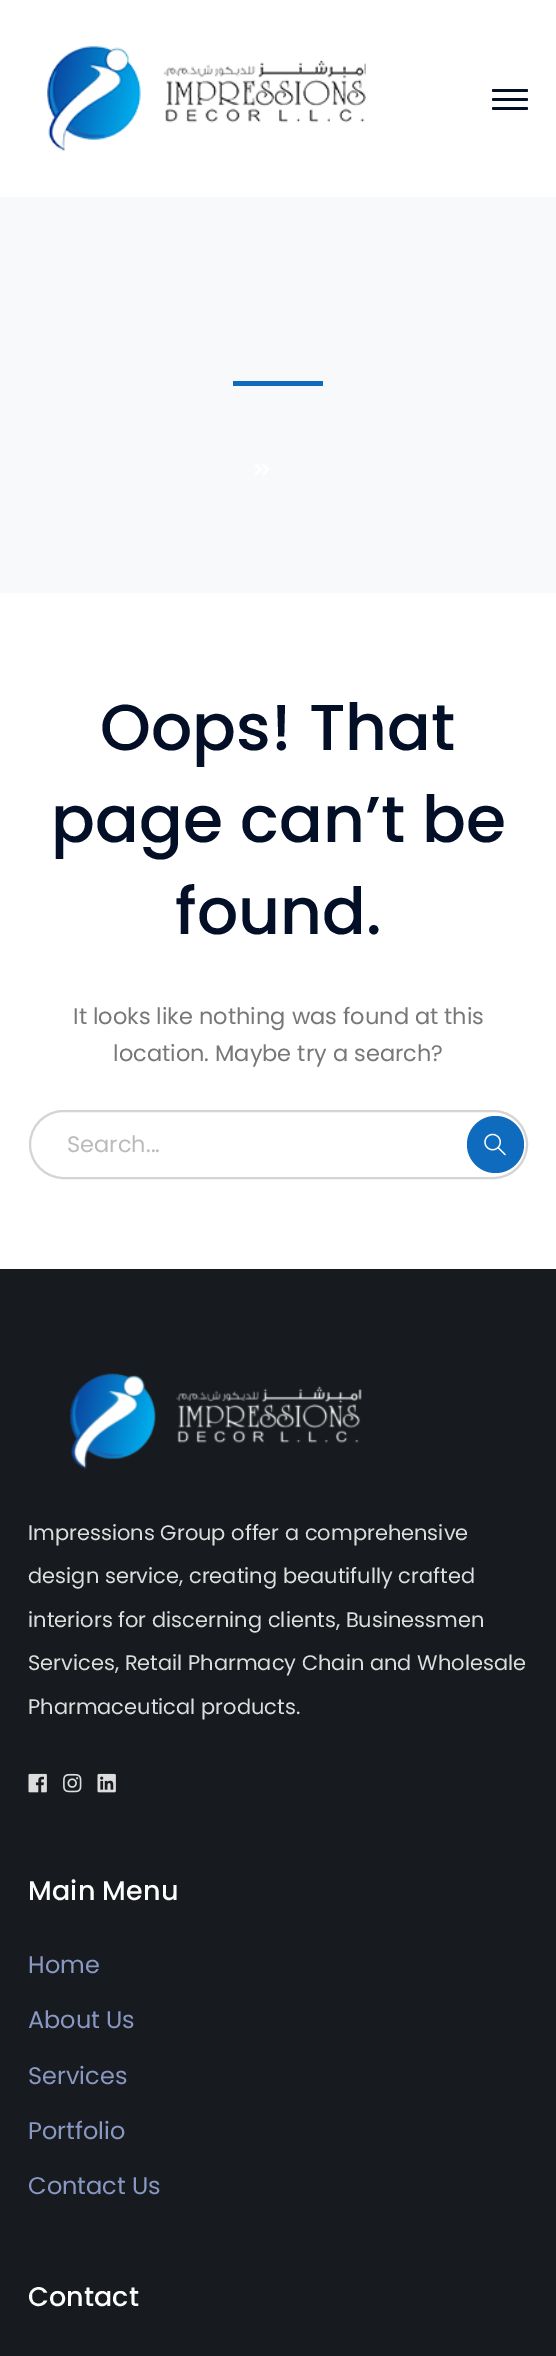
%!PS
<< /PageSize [556 2356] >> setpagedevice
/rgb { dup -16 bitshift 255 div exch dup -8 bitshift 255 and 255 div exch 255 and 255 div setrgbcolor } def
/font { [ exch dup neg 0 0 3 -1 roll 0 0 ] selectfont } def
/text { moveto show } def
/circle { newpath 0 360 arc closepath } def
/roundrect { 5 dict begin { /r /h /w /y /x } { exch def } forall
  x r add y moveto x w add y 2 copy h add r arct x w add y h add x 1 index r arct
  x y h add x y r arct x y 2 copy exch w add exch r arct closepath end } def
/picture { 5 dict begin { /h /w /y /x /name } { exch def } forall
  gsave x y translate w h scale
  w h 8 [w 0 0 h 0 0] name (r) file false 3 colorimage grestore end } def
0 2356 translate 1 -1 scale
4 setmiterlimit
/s1 { /Poppins-Regular 22.5 font 16#777777 rgb } def
/s2 { /Poppins-Regular 22.5 font 16#BBBBBB rgb } def
/s3 { /Poppins-Regular 21 font 16#DDDDDD rgb } def
/s4 { /Poppins-Regular 24 font 16#8998C2 rgb } def
16#FFFFFF rgb
0 0 556 2356 rectfill
(pic1.raw) 47 46 319 105 picture
16#030F27 rgb
492 89 36 3 1.5 roundrect fill
492 98 36 3 1.5 roundrect fill
492 107 36 3 1.5 roundrect fill
16#F7F9FA rgb
0 197 556 396 rectfill
16#0E6BBD rgb
233 381 90 5 rectfill
(pic2.raw) 255 464 14 12 picture
/Poppins-Medium 64.75 font
16#030F27 rgb
100 750 moveto 0.1 0 (Oops! That) ashow
51 842 moveto 0.1 0 (page can’t be) ashow
175 934 moveto 0.1 0 (found.) ashow
s1
(It looks like nothing was found at this) 73 1024 text
(location. Maybe try a search?) 113 1061 text
16#D4D4D5 rgb
2 setlinewidth
30 1111 497 67 33.5 roundrect stroke
s2
(Search...) 67 1152 text
16#0E6BBD rgb
495.5 1144.5 28.5 circle fill
(pic3.raw) 484 1133 22 23 picture
16#171A1E rgb
0 1269 556 1087 rectfill
(pic4.raw) 69 1373 293 96 picture
s3
(Impressions Group offer a comprehensive) 28 1540 text
(design service, creating beautifully crafted) 28 1583 text
(interiors for discerning clients, Businessmen) 28 1627 text
(Services, Retail Pharmacy Chain and Wholesale) 28 1670 text
(Pharmaceutical products.) 28 1714 text
(pic5.raw) 28 1773 19 20 picture
(pic6.raw) 63 1773 19 20 picture
(pic7.raw) 97 1773 19 20 picture
/Poppins-Medium 27 font
16#FEFEFE rgb
28 1900 moveto 0.1 0 (Main Menu) ashow
s4
(Home) 28 1973 text
(About Us) 28 2028 text
(Services) 28 2084 text
(Portfolio) 28 2139 text
(Contact Us) 28 2194 text
/Poppins-Medium 27 font
16#FEFEFE rgb
28 2306 moveto 0.1 0 (Contact) ashow
showpage
